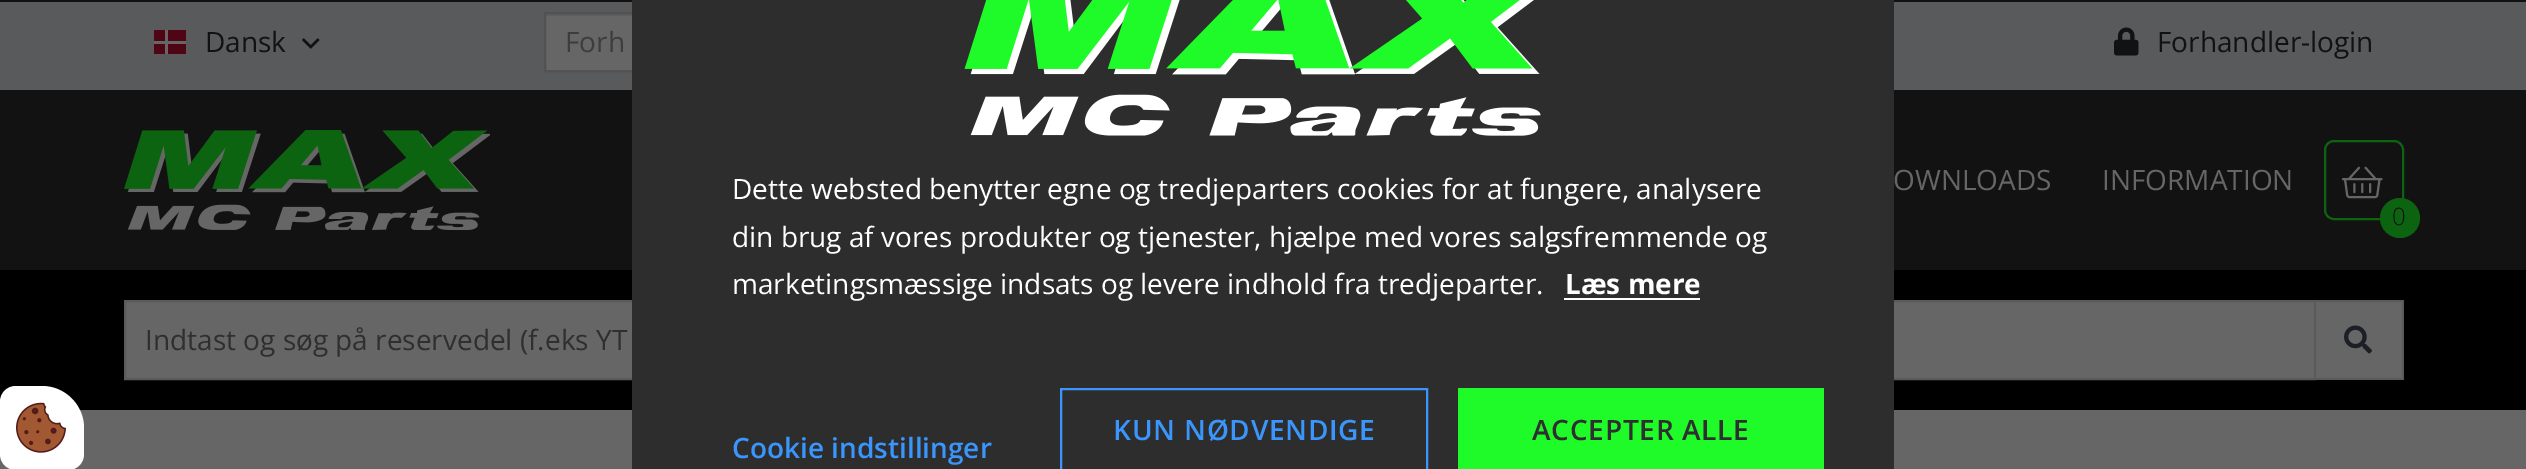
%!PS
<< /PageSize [2526 469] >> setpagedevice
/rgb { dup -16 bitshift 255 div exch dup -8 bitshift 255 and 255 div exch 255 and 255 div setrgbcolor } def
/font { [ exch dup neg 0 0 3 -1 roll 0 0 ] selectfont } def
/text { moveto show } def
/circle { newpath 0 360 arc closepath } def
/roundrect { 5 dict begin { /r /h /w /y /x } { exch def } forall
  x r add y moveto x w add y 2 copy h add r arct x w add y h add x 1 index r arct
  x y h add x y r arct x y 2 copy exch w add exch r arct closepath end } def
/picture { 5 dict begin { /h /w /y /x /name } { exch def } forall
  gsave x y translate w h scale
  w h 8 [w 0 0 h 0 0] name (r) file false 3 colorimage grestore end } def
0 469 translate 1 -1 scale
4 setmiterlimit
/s1 { /OpenSans-Regular 28 font 16#121212 rgb } def
/s2 { /OpenSans-Regular 28 font 16#3D3D3D rgb } def
/s3 { /OpenSans-Regular 28 font 16#666666 rgb } def
/s4 { /OpenSans-Light 24 font 16#121212 rgb } def
/s5 { /OpenSans-Regular 28 font 16#2F2F2F rgb } def
/s6 { /OpenSans-Regular 28 font 16#FFFFFF rgb } def
/s7 { /OpenSans-Bold 28 font 16#FFFFFF rgb } def
/s8 { /OpenSans-SemiBold 28 font 16#3A96FC rgb } def
16#666666 rgb
0 0 2526 469 rectfill
16#121212 rgb
0 0 2526 2 rectfill
16#595A5C rgb
0 2 2526 88 rectfill
16#4F0513 rgb
154 30 32 24 rectfill
16#666666 rgb
165 30 3 24 rectfill
154 41 32 3 rectfill
s1
(Dansk) 205 52 text
(pic1.raw) 302 38 18 11 picture
16#666666 rgb
546 16 86 54 rectfill
16#5E5E5E rgb
546 14 86 2 rectfill
16#525252 rgb
2 setlinewidth
545 13 396 58 rectstroke
s2
(Forh) 565 52 text
(pic2.raw) 2114 27 25 29 picture
s1
(Forhandler-login) 2157 52 text
0 90 2526 180 rectfill
(pic3.raw) 124 130 366 100 picture
s3
(OWNLOADS) 1893 190 text
(INFORMATION) 2102 190 text
16#0C6410 rgb
2325 141 78 78 9 roundrect stroke
2400 218 20 circle fill
(pic4.raw) 2342 166 41 33 picture
s4
(0) 2392 225 text
16#000000 rgb
0 270 2526 140 rectfill
16#666666 rgb
125 301 moveto 2315 301 lineto 2315 379 lineto 125 379 lineto closepath gsave fill grestore
16#595A5C rgb
stroke
s5
(Indtast og søg på reservedel \(f.eks YT) 145 350 text
16#666666 rgb
2316 302 86 76 rectfill
16#595A5C rgb
2316 300 88 2 rectfill
2402 300 2 80 rectfill
2316 378 88 2 rectfill
(pic5.raw) 2344 325 28 29 picture
16#FFFFFF rgb
16 386 moveto 42 386 lineto 65 386 84 405 84 428 curveto 84 454 lineto 84 463 77 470 68 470 curveto 16 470 lineto 7 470 0 463 0 454 curveto 0 402 lineto 0 393 7 386 16 386 curveto closepath fill
(pic6.raw) 16 402 50 51 picture
16#2D2D2D rgb
632 0 1262 469 rectfill
(pic7.raw) 964 0 577 136 picture
s6
(Dette websted benytter egne og tredjeparters cookies for at fungere, analysere) 732 199 text
(din brug af vores produkter og tjenester, hjælpe med vores salgsfremmende og) 732 247 text
(marketingsmæssige indsats og levere indhold fra tredjeparter.) 732 294 text
s7
(Læs mere) 1565 294 text
1564 298 136 2 rectfill
16#3A96FC rgb
1061 389 366 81 rectstroke
/OpenSans-SemiBold 28 font
1113 440 moveto 0.75 0 (KUN NØDVENDIGE) ashow
16#1FFB29 rgb
1458 388 366 81 rectfill
16#2F2F2F rgb
1532 440 moveto 0.75 0 (ACCEPTER ALLE) ashow
s8
(Cookie indstillinger) 732 458 text
showpage
